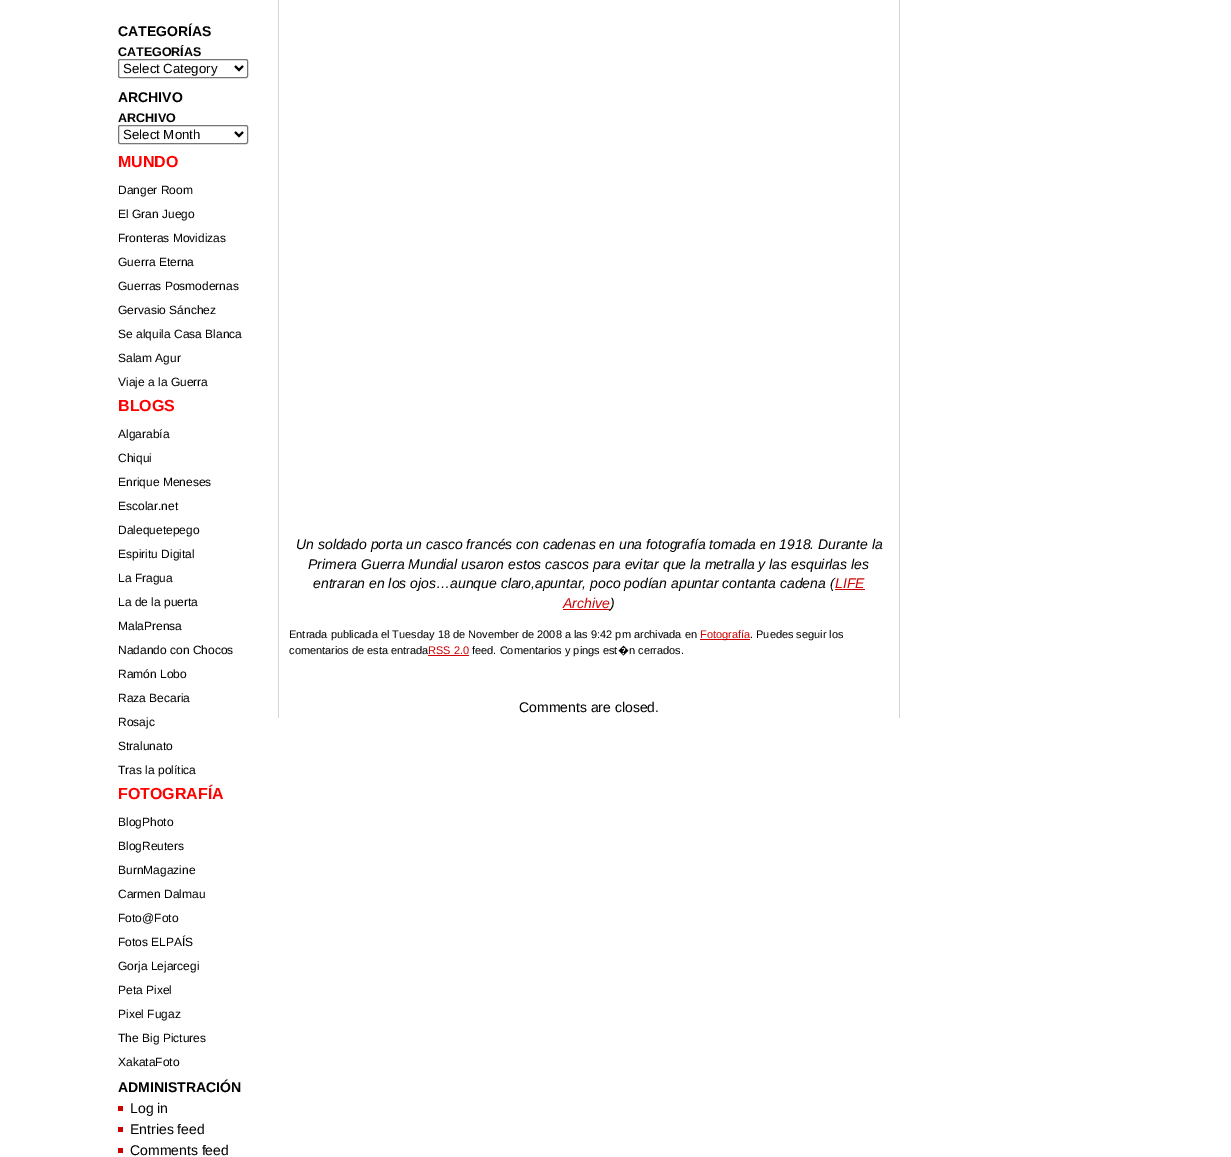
%!PS
<< /PageSize [1231 1157] >> setpagedevice
/rgb { dup -16 bitshift 255 div exch dup -8 bitshift 255 and 255 div exch 255 and 255 div setrgbcolor } def
/font { [ exch dup neg 0 0 3 -1 roll 0 0 ] selectfont } def
/text { moveto show } def
/roundrect { 5 dict begin { /r /h /w /y /x } { exch def } forall
  x r add y moveto x w add y 2 copy h add r arct x w add y h add x 1 index r arct
  x y h add x y r arct x y 2 copy exch w add exch r arct closepath end } def
0 1157 translate 1 -1 scale
4 setmiterlimit
/s1 { /LiberationSans-Bold 14 font 16#000000 rgb } def
/s2 { /LiberationSans-Bold 12.5 font 16#000000 rgb } def
/s3 { /LiberationSans-Regular 13.25 font 16#000000 rgb } def
/s4 { /LiberationSans-Bold 16 font 16#FF0000 rgb } def
/s5 { /LiberationSans-Regular 12 font 16#000000 rgb } def
/s6 { /LiberationSans-Regular 14 font 16#000000 rgb } def
/s7 { /LiberationSans-Italic 14 font 16#000000 rgb } def
/s8 { /LiberationSans-Italic 14 font 16#CF0303 rgb } def
/s9 { /LiberationSans-Regular 11 font 16#000000 rgb } def
/s10 { /LiberationSans-Regular 11 font 16#CF0303 rgb } def
/s11 { /NotoSans-Regular 11 font 16#000000 rgb } def
16#FFFFFF rgb
0 0 1231 1157 rectfill
s1
(CATEGORÍAS) 118 36 text
s2
(CATEGORÍAS) 118 56 text
16#767676 rgb
118.5 59.5 129 18 1.5 roundrect stroke
16#000000 rgb
2 setlinewidth
235 66 moveto 239 70 lineto 243 66 lineto stroke
s3
(Select Category) 123 73 text
s1
(ARCHIVO) 118 102 text
s2
(ARCHIVO) 118 122 text
16#767676 rgb
1 setlinewidth
118.5 125.5 129 18 1.5 roundrect stroke
16#000000 rgb
2 setlinewidth
235 132 moveto 239 136 lineto 243 132 lineto stroke
s3
(Select Month) 123 139 text
s4
(MUNDO) 118 167 text
s5
(Danger Room) 118 194 text
(El Gran Juego) 118 218 text
(Fronteras Movidizas) 118 242 text
(Guerra Eterna) 118 266 text
(Guerras Posmodernas) 118 290 text
(Gervasio Sánchez) 118 314 text
(Se alquila Casa Blanca) 118 338 text
(Salam Agur) 118 362 text
(Viaje a la Guerra) 118 386 text
s4
(BLOGS) 118 411 text
s5
(Algarabía) 118 438 text
(Chiqui) 118 462 text
(Enrique Meneses) 118 486 text
(Escolar.net) 118 510 text
(Dalequetepego) 118 534 text
(Espiritu Digital) 118 558 text
(La Fragua) 118 582 text
(La de la puerta) 118 606 text
(MalaPrensa) 118 630 text
(Nadando con Chocos) 118 654 text
(Ramón Lobo) 118 678 text
(Raza Becaria) 118 702 text
(Rosajc) 118 726 text
(Stralunato) 118 750 text
(Tras la política) 118 774 text
s4
(FOTOGRAFÍA) 118 799 text
s5
(BlogPhoto) 118 826 text
(BlogReuters) 118 850 text
(BurnMagazine) 118 874 text
(Carmen Dalmau) 118 898 text
(Foto@Foto) 118 922 text
(Fotos ELPAÍS) 118 946 text
(Gorja Lejarcegi) 118 970 text
(Peta Pixel) 118 994 text
(Pixel Fugaz) 118 1018 text
(The Big Pictures) 118 1042 text
(XakataFoto) 118 1066 text
s1
(ADMINISTRACIÓN) 118 1092 text
16#CC0000 rgb
118 1106 5 5 rectfill
s6
(Log in) 130 1113 text
16#CC0000 rgb
118 1127 5 5 rectfill
s6
(Entries feed) 130 1134 text
16#CC0000 rgb
118 1148 5 5 rectfill
s6
(Comments feed) 130 1155 text
16#D6D6D6 rgb
899 0 1 718 rectfill
278 0 1 718 rectfill
s7
(Un soldado porta un casco francés con cadenas en una fotografía tomada en 1918. Durante la) 296 549 text
(Primera Guerra Mundial usaron estos cascos para evitar que la metralla y las esquirlas les) 308 569 text
(entraran en los ojos…aunque claro,apuntar, poco podían apuntar contanta cadena \() 313 588 text
16#CF0303 rgb
835 589 30 1 rectfill
(LIFE) 835 588 text
(Archive) 563 608 text
563 609 47 1 rectfill
s7
(\)) 610 608 text
s9
(Entrada publicada el Tuesday 18 de November de 2008 a las 9:42 pm archivada en) 289 638 text
16#CF0303 rgb
700 639 50 1 rectfill
(Fotografía) 700 638 text
s9
(. Puedes seguir los) 750 638 text
(comentarios de esta entrada) 289 654 text
s10
(RSS 2.0) 428 654 text
428 655 41 1 rectfill
s9
(feed. Comentarios y pings est) 472 654 text
s11
(�) 618 654 text
s9
(n cerrados.) 629 654 text
s6
(Comments are closed.) 519 712 text
showpage
